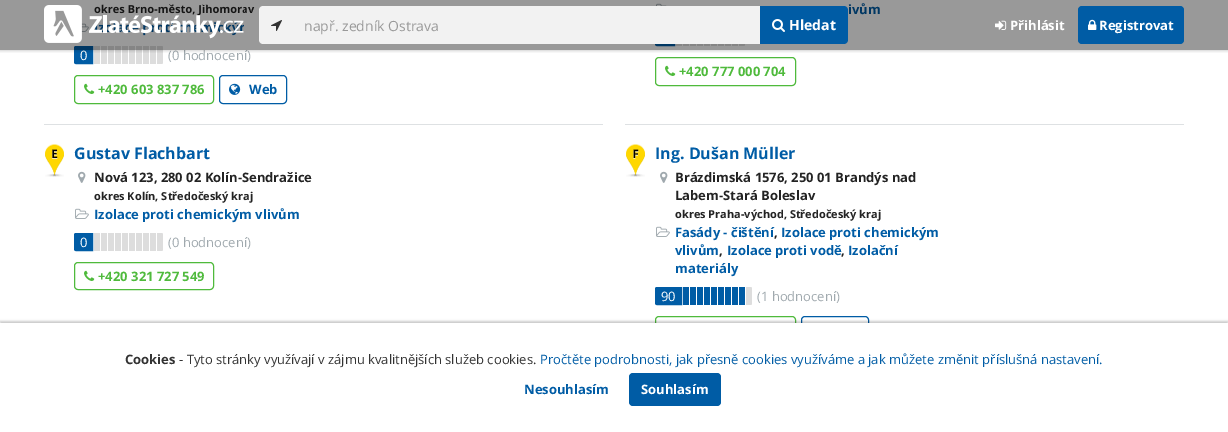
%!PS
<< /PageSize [1228 432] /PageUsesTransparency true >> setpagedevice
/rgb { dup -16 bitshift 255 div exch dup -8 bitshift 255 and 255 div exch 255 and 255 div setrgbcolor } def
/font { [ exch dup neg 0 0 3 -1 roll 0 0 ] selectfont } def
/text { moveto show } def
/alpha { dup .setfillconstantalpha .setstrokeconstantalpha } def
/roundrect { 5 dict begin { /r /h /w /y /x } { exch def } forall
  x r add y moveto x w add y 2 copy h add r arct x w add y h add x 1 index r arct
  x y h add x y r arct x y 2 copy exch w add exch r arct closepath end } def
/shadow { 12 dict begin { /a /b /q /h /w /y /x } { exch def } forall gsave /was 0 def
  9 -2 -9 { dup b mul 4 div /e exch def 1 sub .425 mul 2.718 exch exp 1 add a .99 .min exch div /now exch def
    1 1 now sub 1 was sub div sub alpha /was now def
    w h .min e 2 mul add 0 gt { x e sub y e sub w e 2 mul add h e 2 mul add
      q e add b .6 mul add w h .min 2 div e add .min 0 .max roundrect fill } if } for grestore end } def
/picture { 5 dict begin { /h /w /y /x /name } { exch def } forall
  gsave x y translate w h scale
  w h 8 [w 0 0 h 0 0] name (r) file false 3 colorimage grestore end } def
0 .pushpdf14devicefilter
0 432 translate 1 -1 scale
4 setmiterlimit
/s1 { /OpenSans-Bold 11 font 16#232323 rgb } def
/s2 { /OpenSans-Regular 13 font 16#FFFFFF rgb } def
/s3 { /OpenSans-Regular 13 font 16#A0A9AE rgb } def
/s4 { /OpenSans-Bold 13 font 16#4FBA3C rgb } def
/s5 { /OpenSans-Bold 13 font 16#005CA5 rgb } def
/s6 { /OpenSans-Bold 16 font 16#005CA5 rgb } def
/s7 { /OpenSans-Bold 13 font 16#232323 rgb } def
/s8 { /OpenSans-Regular 14 font 16#999999 rgb } def
/s9 { /OpenSans-Bold 14 font 16#FFFFFF rgb } def
/s10 { /OpenSans-Bold 13 font 16#FFFFFF rgb } def
/s11 { /OpenSans-Bold 13 font 16#333333 rgb } def
/s12 { /OpenSans-Regular 13 font 16#333333 rgb } def
/s13 { /OpenSans-Regular 13 font 16#005CA5 rgb } def
16#FFFFFF rgb
0 0 1228 432 rectfill
16#DEE1E3 rgb
44 124 559 1 rectfill
s1
(okres Brno-město, Jihomorav) 94 13 text
(pic1.raw) 81 23 8 9 picture
16#005CA5 rgb
76 46.5 moveto 92.5 46.5 lineto 92.5 63.5 lineto 76 63.5 lineto 75 63.5 74.5 63 74.5 62 curveto 74.5 48 lineto 74.5 47 75 46.5 76 46.5 curveto closepath gsave fill grestore
stroke
s2
(0) 80 60 text
(pic2.raw) 94 46 69 18 picture
s3
(\(0 hodnocení\)) 168 60 text
16#4FBA3C rgb
74.5 75.5 139 28 3.5 roundrect stroke
(pic3.raw) 84 83 11 11 picture
s4
(+420 603 837 786) 98 94 text
16#005CA5 rgb
219.5 75.5 67 28 3.5 roundrect stroke
(pic4.raw) 229 83 12 12 picture
(Web) 249 94 text
16#DEE1E3 rgb
625 124 559 1 rectfill
(pic5.raw) 656 3 11 3 picture
s5
(ivům) 848 14 text
657 28.5 moveto 674.5 28.5 lineto 674.5 45.5 lineto 657 45.5 lineto 656 45.5 655.5 45 655.5 44 curveto 655.5 30 lineto 655.5 29 656 28.5 657 28.5 curveto closepath gsave fill grestore
stroke
(pic6.raw) 676 44 69 2 picture
16#4FBA3C rgb
655.5 57.5 140 28 3.5 roundrect stroke
(pic3.raw) 665 65 11 11 picture
(+420 777 000 704) 679 76 text
(pic7.raw) 45 144 19 33 picture
s6
(Gustav Flachbart) 74 159 text
(pic8.raw) 78 171 8 12 picture
s7
(Nová 123, 280 02 Kolín-Sendražice) 94 182 text
s1
(okres Kolín, Středočeský kraj) 94 200 text
(pic9.raw) 75 208 14 11 picture
s5
(Izolace proti chemickým vlivům) 94 219 text
76 233.5 moveto 92.5 233.5 lineto 92.5 250.5 lineto 76 250.5 lineto 75 250.5 74.5 250 74.5 249 curveto 74.5 235 lineto 74.5 234 75 233.5 76 233.5 curveto closepath gsave fill grestore
stroke
s2
(0) 80 247 text
(pic2.raw) 94 233 69 18 picture
s3
(\(0 hodnocení\)) 168 247 text
16#4FBA3C rgb
74.5 262.5 139 27 3.5 roundrect stroke
(pic3.raw) 84 270 11 11 picture
s4
(+420 321 727 549) 98 281 text
(pic10.raw) 626 144 19 33 picture
s6
(Ing. Dušan Müller) 655 159 text
(pic8.raw) 660 171 8 12 picture
s7
(Brázdimská 1576, 250 01 Brandýs nad) 675 182 text
(Labem-Stará Boleslav) 675 200 text
s1
(okres Praha-východ, Středočeský kraj) 675 218 text
(pic9.raw) 656 226 14 11 picture
s5
(Fasády - čištění) 675 237 text
s7
(,) 774 237 text
s5
(Izolace proti chemickým) 781 237 text
(vlivům) 675 255 text
s7
(,) 719 255 text
s5
(Izolace proti vodě) 727 255 text
s7
(,) 841 255 text
s5
(Izolační) 848 255 text
(materiály) 675 273 text
657 287.5 moveto 681.5 287.5 lineto 681.5 304.5 lineto 657 304.5 lineto 656 304.5 655.5 304 655.5 303 curveto 655.5 289 lineto 655.5 288 656 287.5 657 287.5 curveto closepath gsave fill grestore
stroke
s2
(90) 661 301 text
(pic11.raw) 746 287 6 18 picture
(pic12.raw) 683 287 62 18 picture
s3
(\(1 hodnocení\)) 757 301 text
16#4FBA3C rgb
655.5 316.5 140 27 3.5 roundrect stroke
16#005CA5 rgb
801.5 316.5 67 27 3.5 roundrect stroke
gsave
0 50 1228 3 rectclip
16#000000 rgb
0 0 1228 50 0 2 0.3 shadow
grestore
0.4 alpha
16#000000 rgb
0 0 1228 50 rectfill
1 alpha
(pic13.raw) 44 5 200 38 picture
16#F2F2F2 rgb
263 6 moveto 294 6 lineto 294 44 lineto 263 44 lineto 261 44 259 42 259 40 curveto 259 10 lineto 259 8 261 6 263 6 curveto closepath fill
(pic14.raw) 271 20 11 11 picture
294 6 466 38 rectfill
s8
(např. zedník Ostrava) 304 31 text
16#005CA5 rgb
760 6 moveto 844 6 lineto 846 6 848 8 848 10 curveto 848 40 lineto 848 42 846 44 844 44 curveto 760 44 lineto closepath fill
(pic15.raw) 772 19 13 13 picture
s9
(Hledat) 789 30 text
(pic16.raw) 995 20 12 10 picture
s10
(Přihlásit) 1010 30 text
16#005CA5 rgb
1078 6 106 38 4 roundrect fill
(pic17.raw) 1088 19 9 11 picture
s10
(Registrovat) 1099 30 text
16#000000 rgb
0 321 1228 109 0 1 0.2 shadow
16#FFFFFF rgb
0 323 1228 109 rectfill
s11
(Cookies) 125 364 text
s12
(- Tyto stránky využívají v zájmu kvalitnějších služeb cookies.) 179 364 text
s13
(Pročtěte podrobnosti, jak přesně cookies využíváme a jak můžete změnit příslušná nastavení.) 540 364 text
s5
(Nesouhlasím) 524 394 text
629 373 92 33 4 roundrect fill
s10
(Souhlasím) 641 394 text
.poppdf14devicefilter showpage
